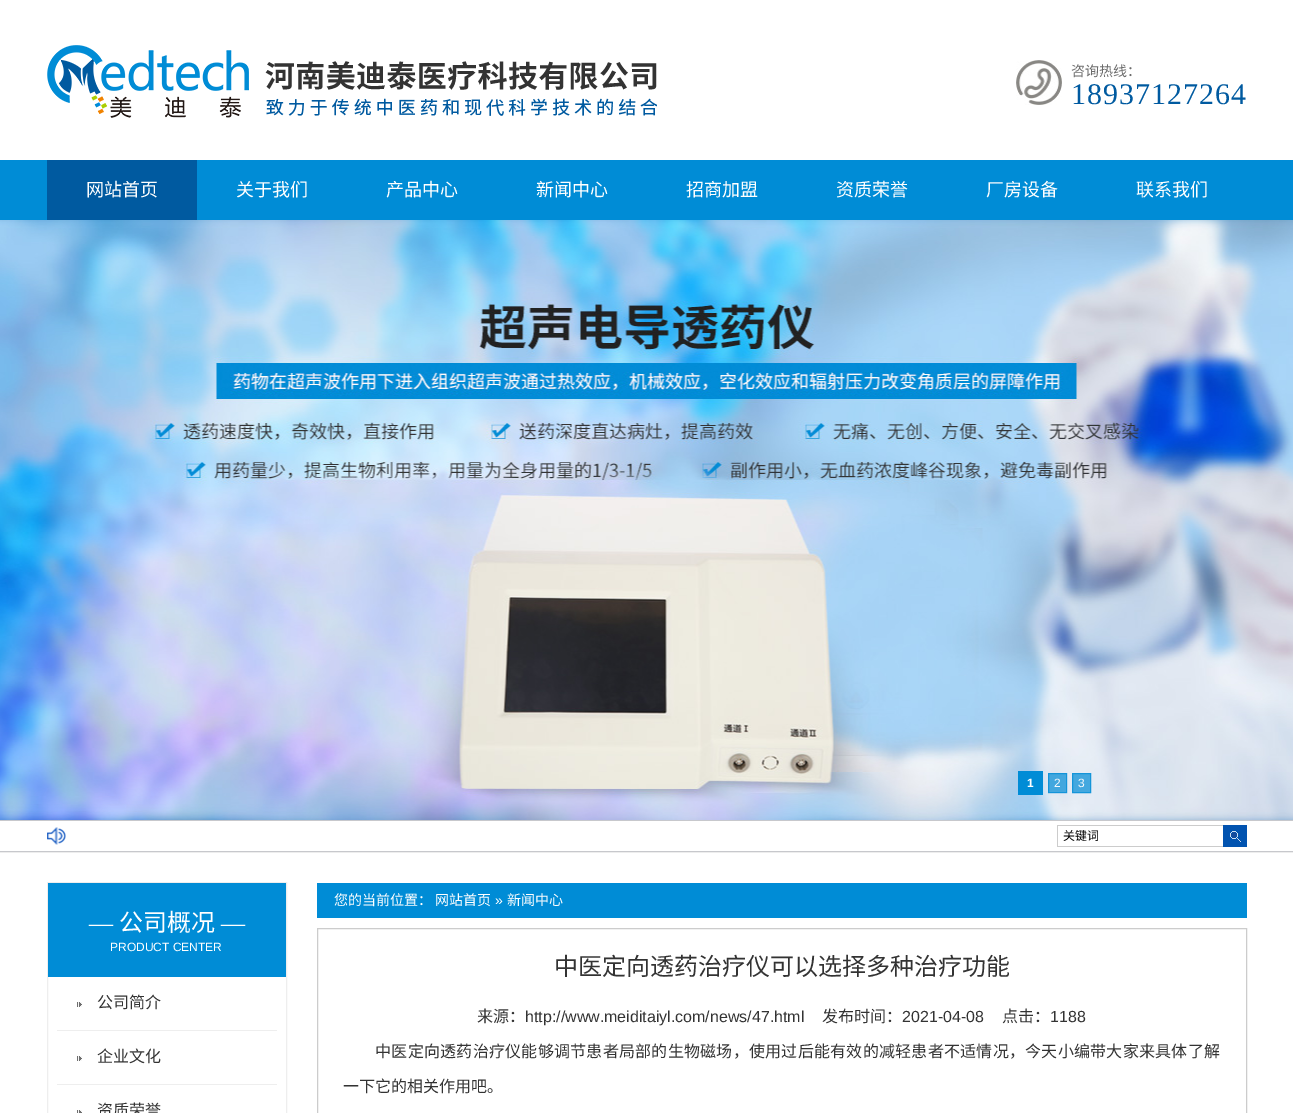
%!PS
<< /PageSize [1293 1113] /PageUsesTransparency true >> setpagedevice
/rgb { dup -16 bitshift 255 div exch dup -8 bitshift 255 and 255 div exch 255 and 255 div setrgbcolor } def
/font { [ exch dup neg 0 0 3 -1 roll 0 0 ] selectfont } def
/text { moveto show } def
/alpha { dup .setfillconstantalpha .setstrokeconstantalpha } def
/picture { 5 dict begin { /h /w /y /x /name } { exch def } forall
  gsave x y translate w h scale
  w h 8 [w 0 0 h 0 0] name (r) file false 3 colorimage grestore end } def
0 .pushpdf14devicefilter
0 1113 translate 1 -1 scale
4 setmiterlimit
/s1 { /NotoSansCJKSC-Regular 14 font 16#6C6C6C rgb } def
/s2 { /NotoSansCJKSC-Regular 18 font 16#FFFFFF rgb } def
/s3 { /LiberationSans-Bold 12 font 16#FFFFFF rgb } def
/s4 { /LiberationSans-Regular 12 font 16#F5F8FB rgb } def
/s5 { /NotoSansCJKSC-Regular 12 font 16#000000 rgb } def
/s6 { /LiberationSerif-Regular 24 font 16#FFFFFF rgb } def
/s7 { /NotoSansCJKSC-Regular 24 font 16#FFFFFF rgb } def
/s8 { /LiberationSans-Regular 12 font 16#FFFFFF rgb } def
/s9 { /NotoSansCJKSC-Regular 16 font 16#333333 rgb } def
/s10 { /NotoSansCJKSC-Regular 14 font 16#FFFFFF rgb } def
/s11 { /LiberationSans-Regular 14 font 16#FFFFFF rgb } def
/s12 { /NotoSansCJKSC-Regular 24 font 16#333333 rgb } def
/s13 { /LiberationSans-Regular 16 font 16#333333 rgb } def
16#FFFFFF rgb
0 0 1293 1113 rectfill
(pic1.raw) 47 45 610 73 picture
(pic2.raw) 1016 60 46 45 picture
s1
(咨询热线：) 1071 76 text
/LiberationSerif-Regular 30 font
16#005AA0 rgb
1071 104 moveto 1 0 (18937127264) ashow
16#008CD6 rgb
0 160 1293 60 rectfill
16#005AA0 rgb
47 160 150 60 rectfill
s2
(网站首页) 86 196 text
(关于我们) 236 196 text
(产品中心) 386 196 text
(新闻中心) 536 196 text
(招商加盟) 686 196 text
(资质荣誉) 836 196 text
(厂房设备) 986 196 text
(联系我们) 1136 196 text
(pic3.raw) 0 220 1293 600 picture
16#008CD6 rgb
1018 771 25 24 rectfill
s3
(1) 1027 787 text
0.7 alpha
16#008CD6 rgb
1048 773 19 20 rectfill
1048.5 773.5 18 19 rectstroke
1 alpha
s4
(2) 1054 787 text
0.7 alpha
16#008CD6 rgb
1072.5 773.5 moveto 1090.5 773.5 lineto 1090.5 792.5 lineto 1072.5 792.5 lineto closepath fill
1 alpha
16#1595D9 rgb
1072.5 773.5 moveto 1090.5 773.5 lineto 1090.5 792.5 lineto 1072.5 792.5 lineto closepath stroke
s4
(3) 1078 787 text
16#C7C8CC rgb
0 820 1293 1 rectfill
0 851 1293 1 rectfill
(pic4.raw) 47 827 19 18 picture
16#CCCCCC rgb
1057 825 166 1 rectfill
1057 846 166 1 rectfill
1057 825 1 22 rectfill
s5
(关键词) 1063 840 text
(pic5.raw) 1223 825 24 22 picture
16#EDEDED rgb
0 852 1293 1 rectfill
16#EEEEEE rgb
47.5 882.5 239 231 rectstroke
16#008CD6 rgb
48 883 238 94 rectfill
s6
(—) 89 931 text
s7
(公司概况) 119 931 text
s6
(—) 221 931 text
s8
(PRODUCT CENTER) 110 951 text
(pic6.raw) 77 1002 5 5 picture
16#EEEEEE rgb
57 1030 220 1 rectfill
s9
(公司简介) 97 1008 text
(pic6.raw) 77 1056 5 5 picture
16#EEEEEE rgb
57 1084 220 1 rectfill
s9
(企业文化) 97 1062 text
(pic7.raw) 77 1110 5 3 picture
(资质荣誉) 97 1116 text
16#008CD6 rgb
317 883 930 35 rectfill
s10
(您的当前位置：) 334 905 text
(网站首页) 435 905 text
s11
(») 495 905 text
s10
(新闻中心) 507 905 text
16#CCCCCC rgb
317.5 928.5 929 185 rectstroke
s12
(中医定向透药治疗仪可以选择多种治疗功能) 554 975 text
s9
(来源：) 477 1022 text
s13
(http://www.meiditaiyl.com/news/47.html) 525 1022 text
s9
(发布时间：) 822 1022 text
s13
(2021-04-08) 902 1022 text
s9
(点击：) 1002 1022 text
s13
(1188) 1050 1022 text
/NotoSansCJKSC-Regular 16 font
375 1057 moveto 0.25 0 (中医定向透药治疗仪能够调节患者局部的生物磁场，使用过后能有效的减轻患者不适情况，今天小编带大家来具体了解) ashow
(一下它的相关作用吧。) 343 1092 text
.poppdf14devicefilter showpage
